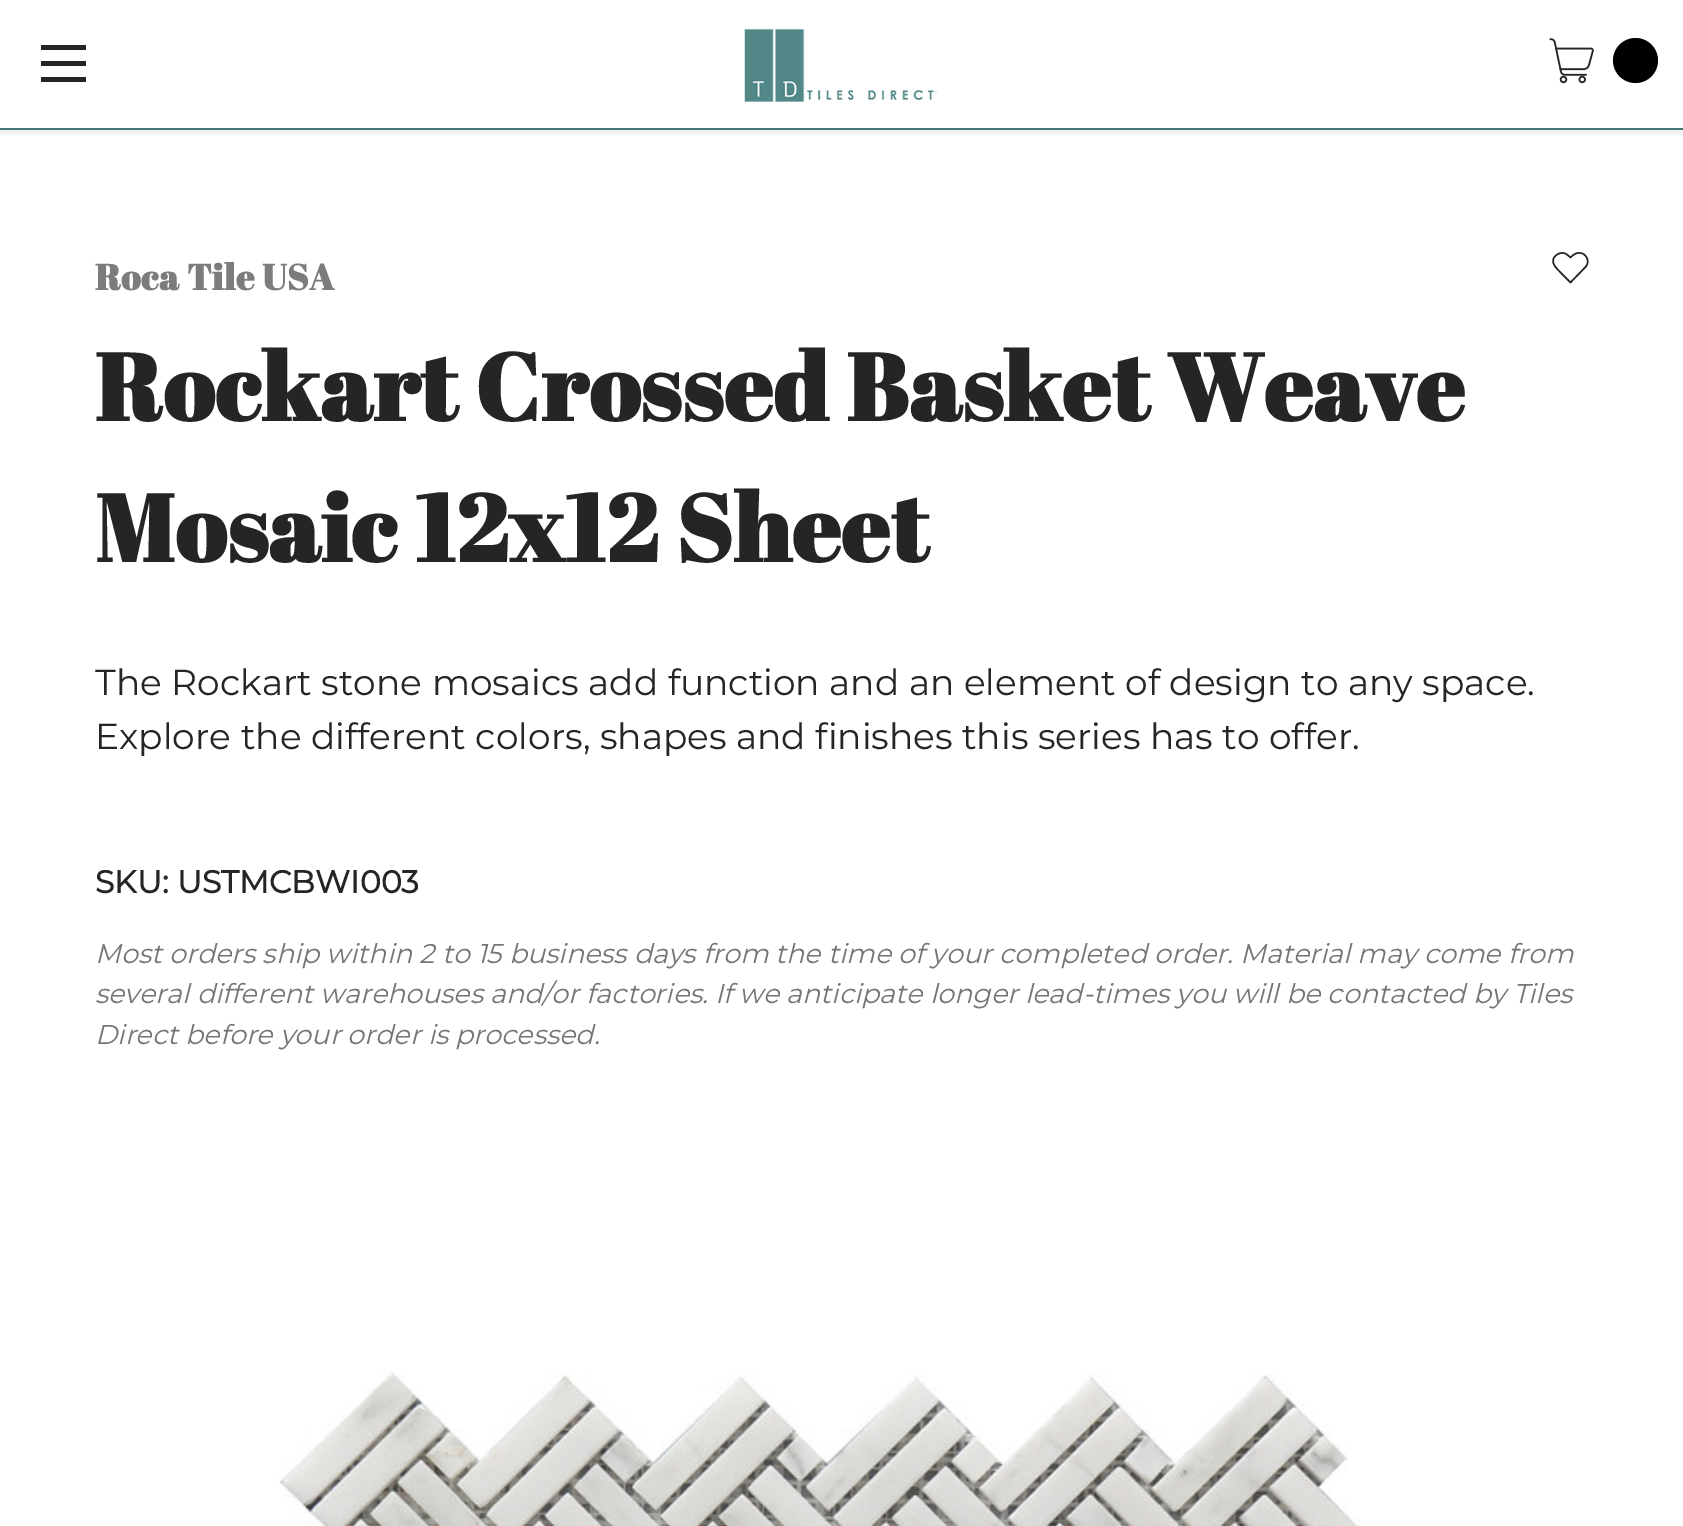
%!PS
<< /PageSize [1683 1526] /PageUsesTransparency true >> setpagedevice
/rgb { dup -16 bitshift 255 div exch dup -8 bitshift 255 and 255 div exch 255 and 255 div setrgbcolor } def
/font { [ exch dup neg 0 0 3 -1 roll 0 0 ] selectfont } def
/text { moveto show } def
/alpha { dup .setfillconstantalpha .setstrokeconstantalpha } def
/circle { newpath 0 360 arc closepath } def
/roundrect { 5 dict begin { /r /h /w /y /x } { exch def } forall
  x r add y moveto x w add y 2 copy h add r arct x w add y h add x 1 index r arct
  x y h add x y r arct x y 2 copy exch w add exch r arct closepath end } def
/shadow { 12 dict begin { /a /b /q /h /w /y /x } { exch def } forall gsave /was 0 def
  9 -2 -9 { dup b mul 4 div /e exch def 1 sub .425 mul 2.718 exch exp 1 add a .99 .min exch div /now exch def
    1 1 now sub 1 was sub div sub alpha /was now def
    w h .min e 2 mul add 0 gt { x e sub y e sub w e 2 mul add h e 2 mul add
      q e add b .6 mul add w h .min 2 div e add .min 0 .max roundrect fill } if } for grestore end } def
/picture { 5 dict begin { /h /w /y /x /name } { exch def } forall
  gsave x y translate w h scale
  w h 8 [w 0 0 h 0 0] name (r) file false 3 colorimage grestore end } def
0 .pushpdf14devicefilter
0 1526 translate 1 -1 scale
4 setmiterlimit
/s1 { /Montserrat-Thin 36 font 16#252525 rgb } def
/s2 { /Montserrat-Bold 31.5 font 16#252525 rgb } def
/s3 { /Montserrat-ThinItalic 27 font 16#757575 rgb } def
16#FFFFFF rgb
0 0 1683 1526 rectfill
16#497979 rgb
0 128 1683 2 rectfill
gsave
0 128 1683 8 rectclip
16#000000 rgb
-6 -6 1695 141 0 2 0.06 shadow
grestore
16#252525 rgb
41 61 45 5 rectfill
41 45 45 5 rectfill
41 77 45 5 rectfill
(pic1.raw) 744 28 193 74 picture
(pic2.raw) 1549 38 45 46 picture
16#000000 rgb
1635.5 60.5 22.5 circle fill
/AbrilFatface-Bold 36 font
16#7C7C7C rgb
95 290 moveto 0.55 0 (Roca Tile USA) ashow
16#252525 rgb
1.5 setlinewidth
1 setlinecap
1 setlinejoin
1570.5 282.5 moveto 1560.5 272.5 lineto 1557 268.5 1550.5 264 1554 257.5 curveto 1555.5 255.5 1557 254 1559.5 253.5 curveto 1564.5 251.5 1567 254.5 1570.5 257.5 curveto 1572 256 1573.5 254.5 1576 253.5 curveto 1584.5 250 1592 261 1585 267.5 curveto closepath stroke
/AbrilFatface-Bold 94.5 font
95 421 moveto 0.55 0 (Rockart Crossed Basket Weave) ashow
95 562 moveto 0.55 0 (Mosaic 12x12 Sheet) ashow
s1
(The Rockart stone mosaics add function and an element of design to any space.) 95 695 text
(Explore the different colors, shapes and finishes this series has to offer.) 95 749 text
s2
(SKU: USTMCBWI003) 95 893 text
s3
(Most orders ship within 2 to 15 business days from the time of your completed order. Material may come from) 95 963 text
(several different warehouses and/or factories. If we anticipate longer lead-times you will be contacted by Tiles) 95 1003 text
(Direct before your order is processed.) 95 1044 text
(pic3.raw) 279 1372 1081 154 picture
.poppdf14devicefilter showpage
